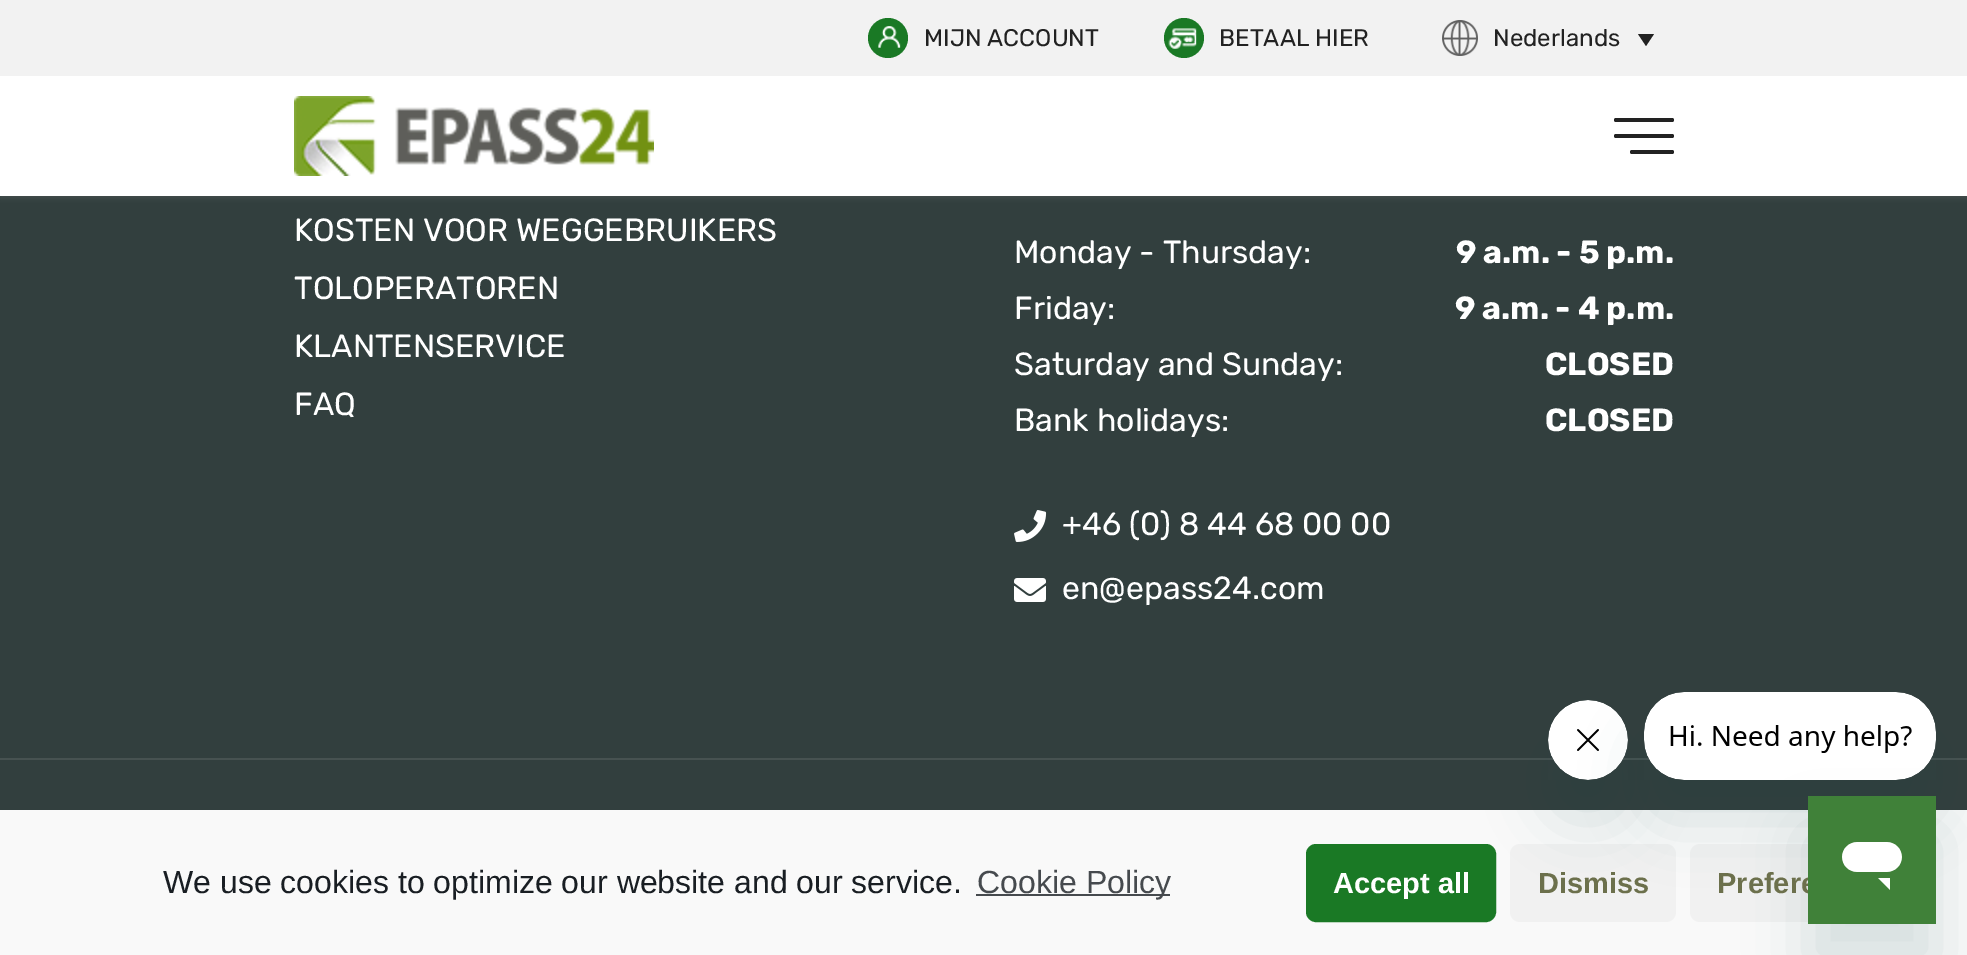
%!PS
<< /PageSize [1967 955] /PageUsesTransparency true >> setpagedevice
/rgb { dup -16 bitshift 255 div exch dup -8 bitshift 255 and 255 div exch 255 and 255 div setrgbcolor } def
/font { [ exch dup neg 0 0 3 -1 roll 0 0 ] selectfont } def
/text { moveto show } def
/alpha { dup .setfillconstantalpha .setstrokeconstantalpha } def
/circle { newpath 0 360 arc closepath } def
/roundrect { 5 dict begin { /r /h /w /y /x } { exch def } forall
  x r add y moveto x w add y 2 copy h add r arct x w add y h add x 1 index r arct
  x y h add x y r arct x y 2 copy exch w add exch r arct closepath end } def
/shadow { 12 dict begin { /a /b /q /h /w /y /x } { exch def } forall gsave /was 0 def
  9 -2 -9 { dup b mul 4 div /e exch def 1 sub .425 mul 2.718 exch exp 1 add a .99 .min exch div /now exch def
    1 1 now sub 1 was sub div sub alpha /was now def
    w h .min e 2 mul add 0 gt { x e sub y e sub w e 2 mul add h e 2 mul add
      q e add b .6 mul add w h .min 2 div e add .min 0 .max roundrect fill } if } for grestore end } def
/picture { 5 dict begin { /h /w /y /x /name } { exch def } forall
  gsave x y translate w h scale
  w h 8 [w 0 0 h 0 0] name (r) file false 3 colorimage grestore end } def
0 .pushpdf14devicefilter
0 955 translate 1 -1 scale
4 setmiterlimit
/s1 { /Rubik-Regular 24 font 16#222222 rgb } def
/s2 { /Rubik-Regular 32 font 16#FFFFFF rgb } def
/s3 { /Rubik-Bold 32 font 16#FFFFFF rgb } def
/s4 { /LiberationSans-Bold 29 font 16#6C704C rgb } def
/s5 { /LiberationSans-Regular 32 font 16#191E23 rgb } def
/s6 { /LiberationSans-Regular 32 font 16#464A4E rgb } def
/s7 { /LiberationSans-Bold 29 font 16#FFFFFF rgb } def
16#323F3E rgb
0 0 1967 955 rectfill
16#6E6E6E rgb
0 2 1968 196 0 3 0.3 shadow
16#FFFFFF rgb
0 76 1967 120 rectfill
16#F2F2F2 rgb
0 0 1967 76 rectfill
16#1A7925 rgb
888 38 20 circle fill
(pic1.raw) 878 26 23 22 picture
s1
(MIJN ACCOUNT) 924 46 text
16#1A7925 rgb
1184 38 20 circle fill
(pic2.raw) 1168 28 29 21 picture
s1
(BETAAL HIER) 1219 46 text
(pic3.raw) 1442 20 36 36 picture
(Nederlands) 1493 46 text
1638 34 moveto 1654 34 lineto 1646 46 lineto closepath fill
(pic4.raw) 294 96 360 80 picture
1614 118 60 4 2 roundrect fill
1614 134 60 4 2 roundrect fill
1630 150 44 4 2 roundrect fill
s2
(KOSTEN VOOR WEGGEBRUIKERS) 294 241 text
(TOLOPERATOREN) 294 299 text
(KLANTENSERVICE) 294 357 text
(FAQ) 294 415 text
(Monday - Thursday:) 1014 263 text
s3
(9 a.m. - 5 p.m.) 1456 263 text
s2
(Friday:) 1014 319 text
s3
(9 a.m. - 4 p.m.) 1455 319 text
s2
(Saturday and Sunday:) 1014 375 text
s3
(CLOSED) 1545 375 text
s2
(Bank holidays:) 1014 431 text
s3
(CLOSED) 1545 431 text
(pic5.raw) 1014 510 33 32 picture
s2
(+46 \(0\) 8 44 68 00 00) 1062 535 text
(pic6.raw) 1014 578 32 24 picture
(en@epass24.com) 1062 599 text
16#475251 rgb
0 758 1967 2 rectfill
16#F9F9F9 rgb
0 810 1967 145 rectfill
16#1A7925 rgb
1308 846 186 74 8 roundrect gsave fill grestore
4 setlinewidth
stroke
16#F1F1F1 rgb
1510 844 166 78 10 roundrect fill
1690 844 218 78 10 roundrect fill
16#17494D rgb
1548 740 80 80 40 30 0.15 shadow
(pic8.raw) 1548 700 80 80 picture
1644 732 292 88 40 30 0.15 shadow
(pic7.raw) 1644 692 292 88 picture
1808 836 128 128 0 30 0.15 shadow
s4
(Prefere) 1717 893 text
(pic9.raw) 1808 796 128 128 picture
s5
(We use cookies to optimize our website and our service.) 163 893 text
16#464A4E rgb
976 894 194 2 rectfill
(Cookie Policy) 977 893 text
s7
(Accept all) 1333 893 text
s4
(Dismiss) 1538 893 text
.poppdf14devicefilter showpage
